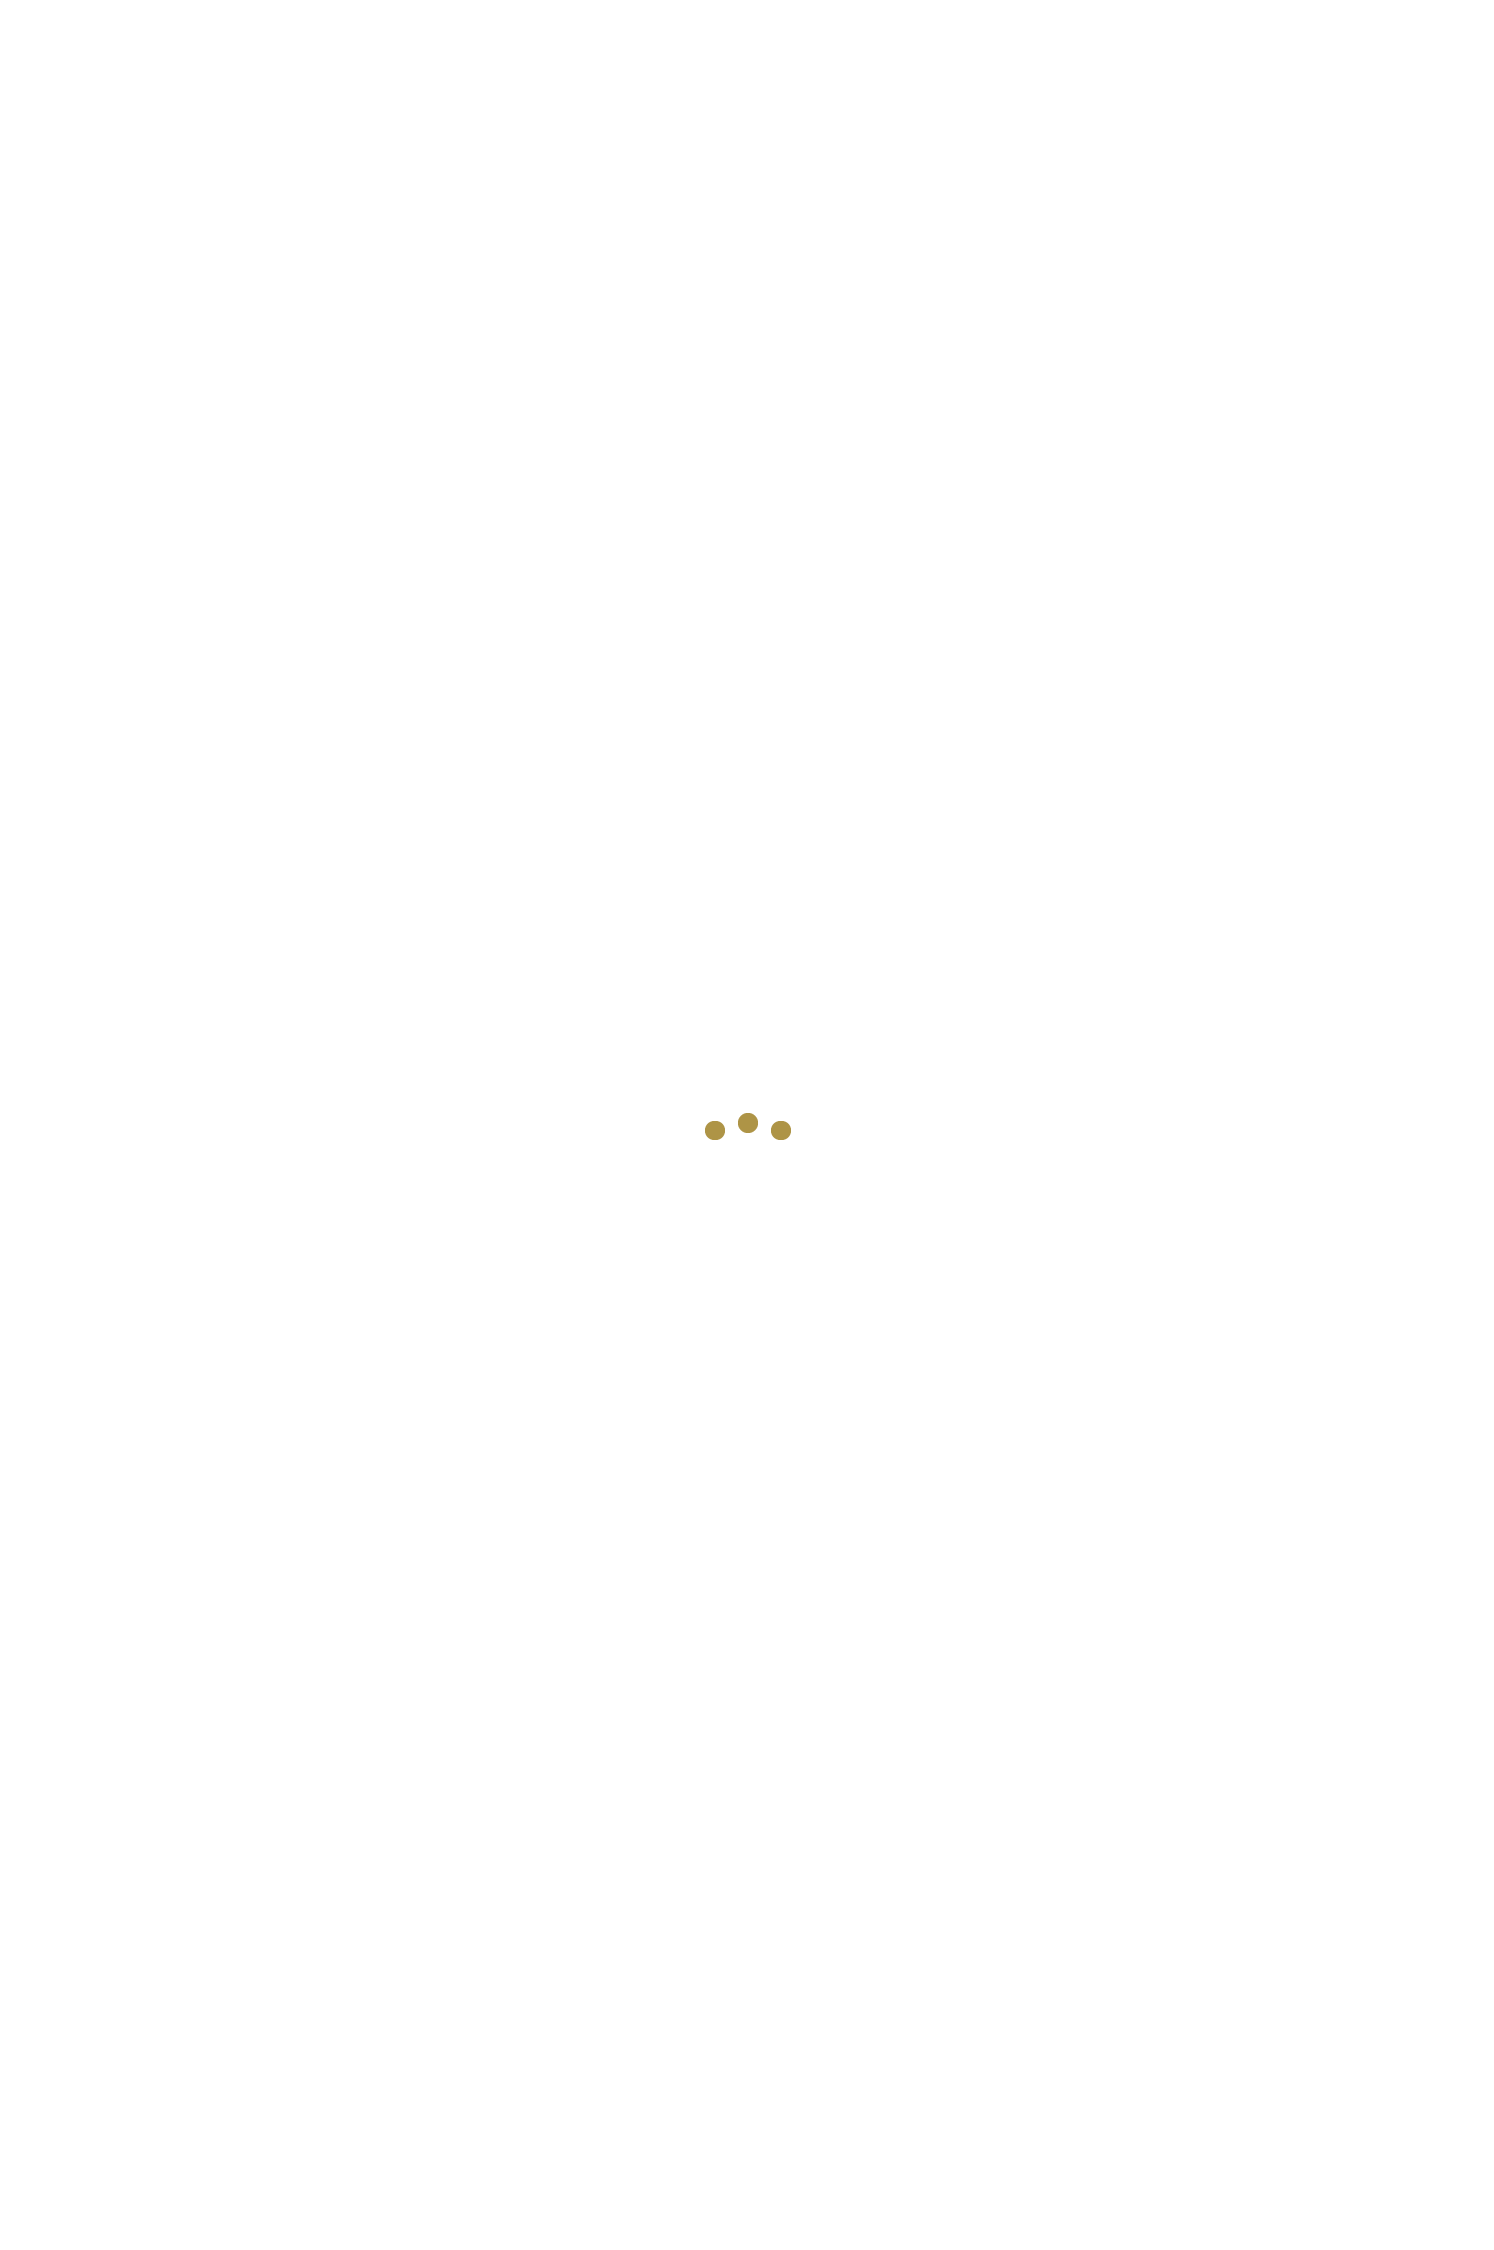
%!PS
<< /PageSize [1494 2250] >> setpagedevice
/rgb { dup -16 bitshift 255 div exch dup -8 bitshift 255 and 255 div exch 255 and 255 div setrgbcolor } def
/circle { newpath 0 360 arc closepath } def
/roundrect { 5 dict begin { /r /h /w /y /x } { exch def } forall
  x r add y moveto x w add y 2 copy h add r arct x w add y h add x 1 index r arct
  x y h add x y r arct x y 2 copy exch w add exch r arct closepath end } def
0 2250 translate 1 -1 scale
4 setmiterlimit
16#FFFFFF rgb
0 0 1494 2250 rectfill
16#AE9446 rgb
705 1121 20 19 9.5 roundrect fill
748 1123 10 circle fill
771 1121 20 19 9.5 roundrect fill
showpage
